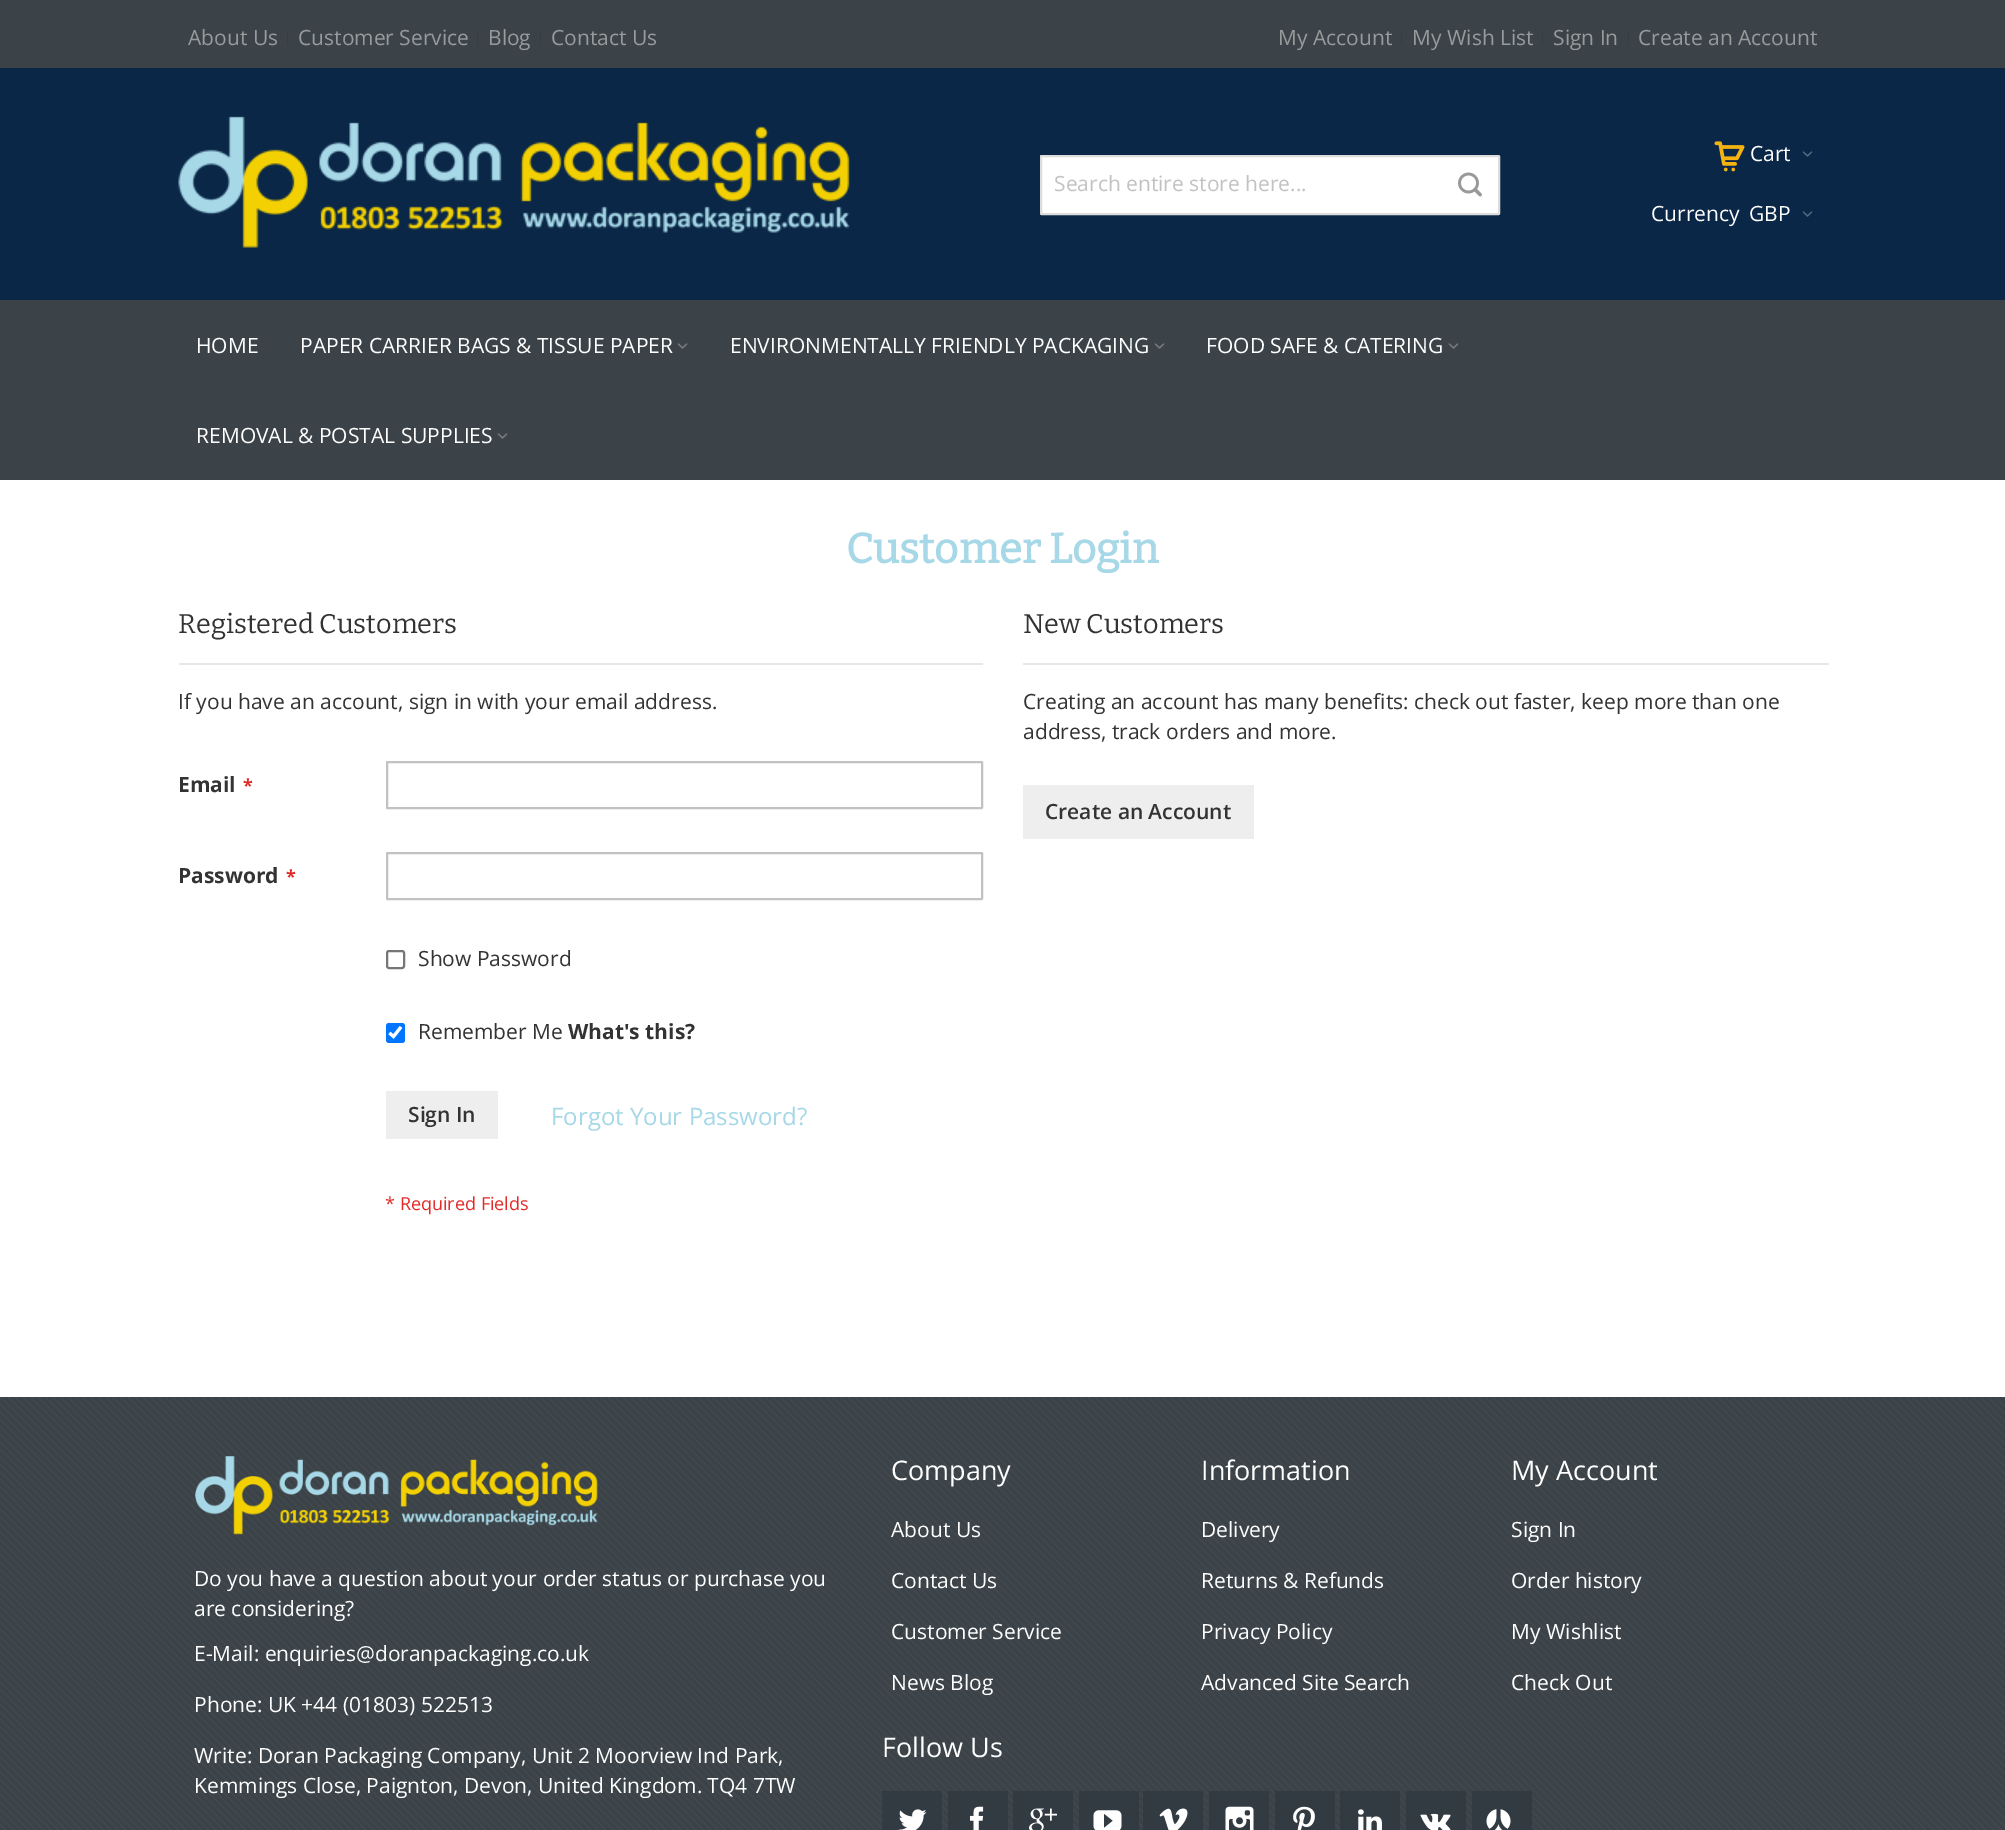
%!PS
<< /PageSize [2005 1830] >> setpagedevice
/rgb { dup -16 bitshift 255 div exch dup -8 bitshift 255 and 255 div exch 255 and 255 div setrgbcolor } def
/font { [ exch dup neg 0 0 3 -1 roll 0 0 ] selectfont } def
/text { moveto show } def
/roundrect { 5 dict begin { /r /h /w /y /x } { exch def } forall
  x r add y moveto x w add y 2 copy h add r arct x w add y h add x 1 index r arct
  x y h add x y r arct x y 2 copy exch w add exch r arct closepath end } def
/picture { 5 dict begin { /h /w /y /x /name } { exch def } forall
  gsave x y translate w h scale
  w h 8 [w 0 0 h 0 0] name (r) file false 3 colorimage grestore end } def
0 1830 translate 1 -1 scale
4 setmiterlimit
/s1 { /OpenSans-Regular 21 font 16#969B9B rgb } def
/s2 { /OpenSans-Regular 21 font 16#C2C2C2 rgb } def
/s3 { /OpenSans-Regular 21 font 16#FFFFFF rgb } def
/s4 { /Bitter-Bold 42 font 16#A6D8E7 rgb } def
/s5 { /Bitter-Thin 27 font 16#333333 rgb } def
/s6 { /OpenSans-Regular 21 font 16#333333 rgb } def
/s7 { /OpenSans-Bold 21 font 16#333333 rgb } def
/s8 { /OpenSans-Bold 18 font 16#E02B27 rgb } def
/s9 { /OpenSans-SemiBold 21 font 16#333333 rgb } def
/s10 { /OpenSans-Regular 24 font 16#A6D8E7 rgb } def
/s11 { /OpenSans-Regular 18 font 16#E02B27 rgb } def
/s12 { /OpenSans-Regular 27 font 16#FFFFFF rgb } def
16#FFFFFF rgb
0 0 2005 1830 rectfill
16#3B4348 rgb
0 0 2005 68 rectfill
16#363E42 rgb
287 30 1 15 rectfill
s1
(About Us) 188 45 text
16#363E42 rgb
477 30 1 15 rectfill
s1
(Customer Service) 298 45 text
16#363E42 rgb
540 30 1 15 rectfill
s1
(Blog) 488 45 text
(Contact Us) 551 45 text
(My Account) 1278 45 text
16#363E42 rgb
1401 30 1 15 rectfill
s1
(My Wish List) 1412 45 text
16#363E42 rgb
1542 30 1 15 rectfill
s1
(Sign In) 1553 45 text
16#363E42 rgb
1628 30 1 15 rectfill
s1
(Create an Account) 1638 45 text
16#0A2747 rgb
0 68 2005 232 rectfill
(pic1.raw) 178 116 672 132 picture
16#FFFFFF rgb
1041 156 458 58 0.5 roundrect gsave fill grestore
16#DDDDDD rgb
2 setlinewidth
stroke
s2
(Search entire store here...) 1054 191 text
(pic2.raw) 1458 172 24 25 picture
(pic3.raw) 1714 141 31 31 picture
s3
(Cart) 1750 161 text
(pic4.raw) 1802 151 11 6 picture
(Currency) 1651 221 text
(GBP) 1749 221 text
(pic4.raw) 1802 211 11 6 picture
16#3B4348 rgb
0 300 2005 180 rectfill
s3
(HOME) 196 353 text
(PAPER CARRIER BAGS & TISSUE PAPER) 300 353 text
(pic5.raw) 677 343 11 6 picture
(ENVIRONMENTALLY FRIENDLY PACKAGING) 730 353 text
(pic5.raw) 1154 343 11 6 picture
(FOOD SAFE & CATERING) 1206 353 text
(pic5.raw) 1448 343 11 6 picture
(REMOVAL & POSTAL SUPPLIES) 196 443 text
(pic5.raw) 497 433 11 6 picture
s4
(Customer Login) 846 563 text
16#E8E8E8 rgb
179 663 804 2 rectfill
s5
(Registered Customers) 178 633 text
s6
(If you have an account, sign in with your email address.) 178 709 text
s7
(Email) 178 792 text
s8
(*) 243 792 text
16#C2C2C2 rgb
387 762 595 46 0.5 roundrect stroke
s7
(Password) 178 883 text
s8
(*) 286 883 text
16#C2C2C2 rgb
387 853 595 46 0.5 roundrect stroke
16#767676 rgb
387 951 17 17 2 roundrect stroke
s6
(Show Password) 418 966 text
16#0075FF rgb
386 1023 19 20 3 roundrect fill
16#FFFFFF rgb
3.1 setlinewidth
389.5 1033 moveto 393.5 1036.5 lineto 401 1027 lineto stroke
s6
(Remember Me) 418 1039 text
s7
(What's this?) 568 1039 text
16#EEEEEE rgb
386 1091 112 48 rectfill
s9
(Sign In) 408 1122 text
s10
(Forgot Your Password?) 551 1125 text
s11
(* Required Fields) 385 1210 text
16#E8E8E8 rgb
1023 663 806 2 rectfill
s5
(New Customers) 1023 633 text
s6
(Creating an account has many benefits: check out faster, keep more than one) 1023 709 text
(address, track orders and more.) 1023 739 text
16#EEEEEE rgb
1023 785 231 54 rectfill
s9
(Create an Account) 1045 819 text
16#3B4348 rgb
0 1397 2005 433 rectfill
(pic6.raw) 0 1397 2005 433 picture
(pic7.raw) 195 1456 403 79 picture
s3
(Do you have a question about your order status or purchase you) 194 1586 text
(are considering?) 194 1616 text
(E-Mail: enquiries@doranpackaging.co.uk) 194 1661 text
(Phone: UK +44 \(01803\) 522513) 194 1712 text
(Write: Doran Packaging Company, Unit 2 Moorview Ind Park,) 194 1763 text
(Kemmings Close, Paignton, Devon, United Kingdom. TQ4 7TW) 194 1793 text
s12
(Company) 891 1480 text
(pic8.raw) 897 1524 6 11 picture
s3
(About Us) 891 1537 text
(pic9.raw) 897 1575 7 11 picture
(Contact Us) 891 1588 text
(pic10.raw) 897 1626 6 11 picture
(Customer Service) 891 1639 text
(pic11.raw) 897 1677 6 11 picture
(News Blog) 891 1690 text
s12
(Information) 1201 1480 text
(pic12.raw) 1207 1524 7 11 picture
s3
(Delivery) 1201 1537 text
(pic13.raw) 1207 1575 7 11 picture
(Returns & Refunds) 1201 1588 text
(pic14.raw) 1207 1626 7 11 picture
(Privacy Policy) 1201 1639 text
(pic15.raw) 1207 1677 7 11 picture
(Advanced Site Search) 1201 1690 text
s12
(My Account) 1511 1480 text
(pic16.raw) 1516 1524 7 11 picture
s3
(Sign In) 1511 1537 text
(pic17.raw) 1516 1575 7 11 picture
(Order history) 1511 1588 text
(pic18.raw) 1516 1626 7 11 picture
(My Wishlist) 1511 1639 text
(pic19.raw) 1516 1677 7 11 picture
(Check Out) 1511 1690 text
s12
(Follow Us) 882 1757 text
16#323A42 rgb
882 1791 60 39 rectfill
(pic20.raw) 898 1809 29 21 picture
948 1791 60 39 rectfill
(pic21.raw) 970 1806 14 24 picture
1013 1791 60 39 rectfill
(pic22.raw) 1029 1808 28 22 picture
1079 1791 60 39 rectfill
(pic23.raw) 1093 1810 29 20 picture
1143 1791 60 39 rectfill
(pic24.raw) 1159 1808 29 22 picture
1209 1791 60 39 rectfill
(pic25.raw) 1225 1806 29 24 picture
1275 1791 60 39 rectfill
(pic26.raw) 1293 1806 22 24 picture
1340 1791 60 39 rectfill
(pic27.raw) 1358 1809 24 21 picture
1406 1791 60 39 rectfill
(pic28.raw) 1420 1813 31 17 picture
1472 1791 60 39 rectfill
(pic29.raw) 1486 1809 25 21 picture
showpage
